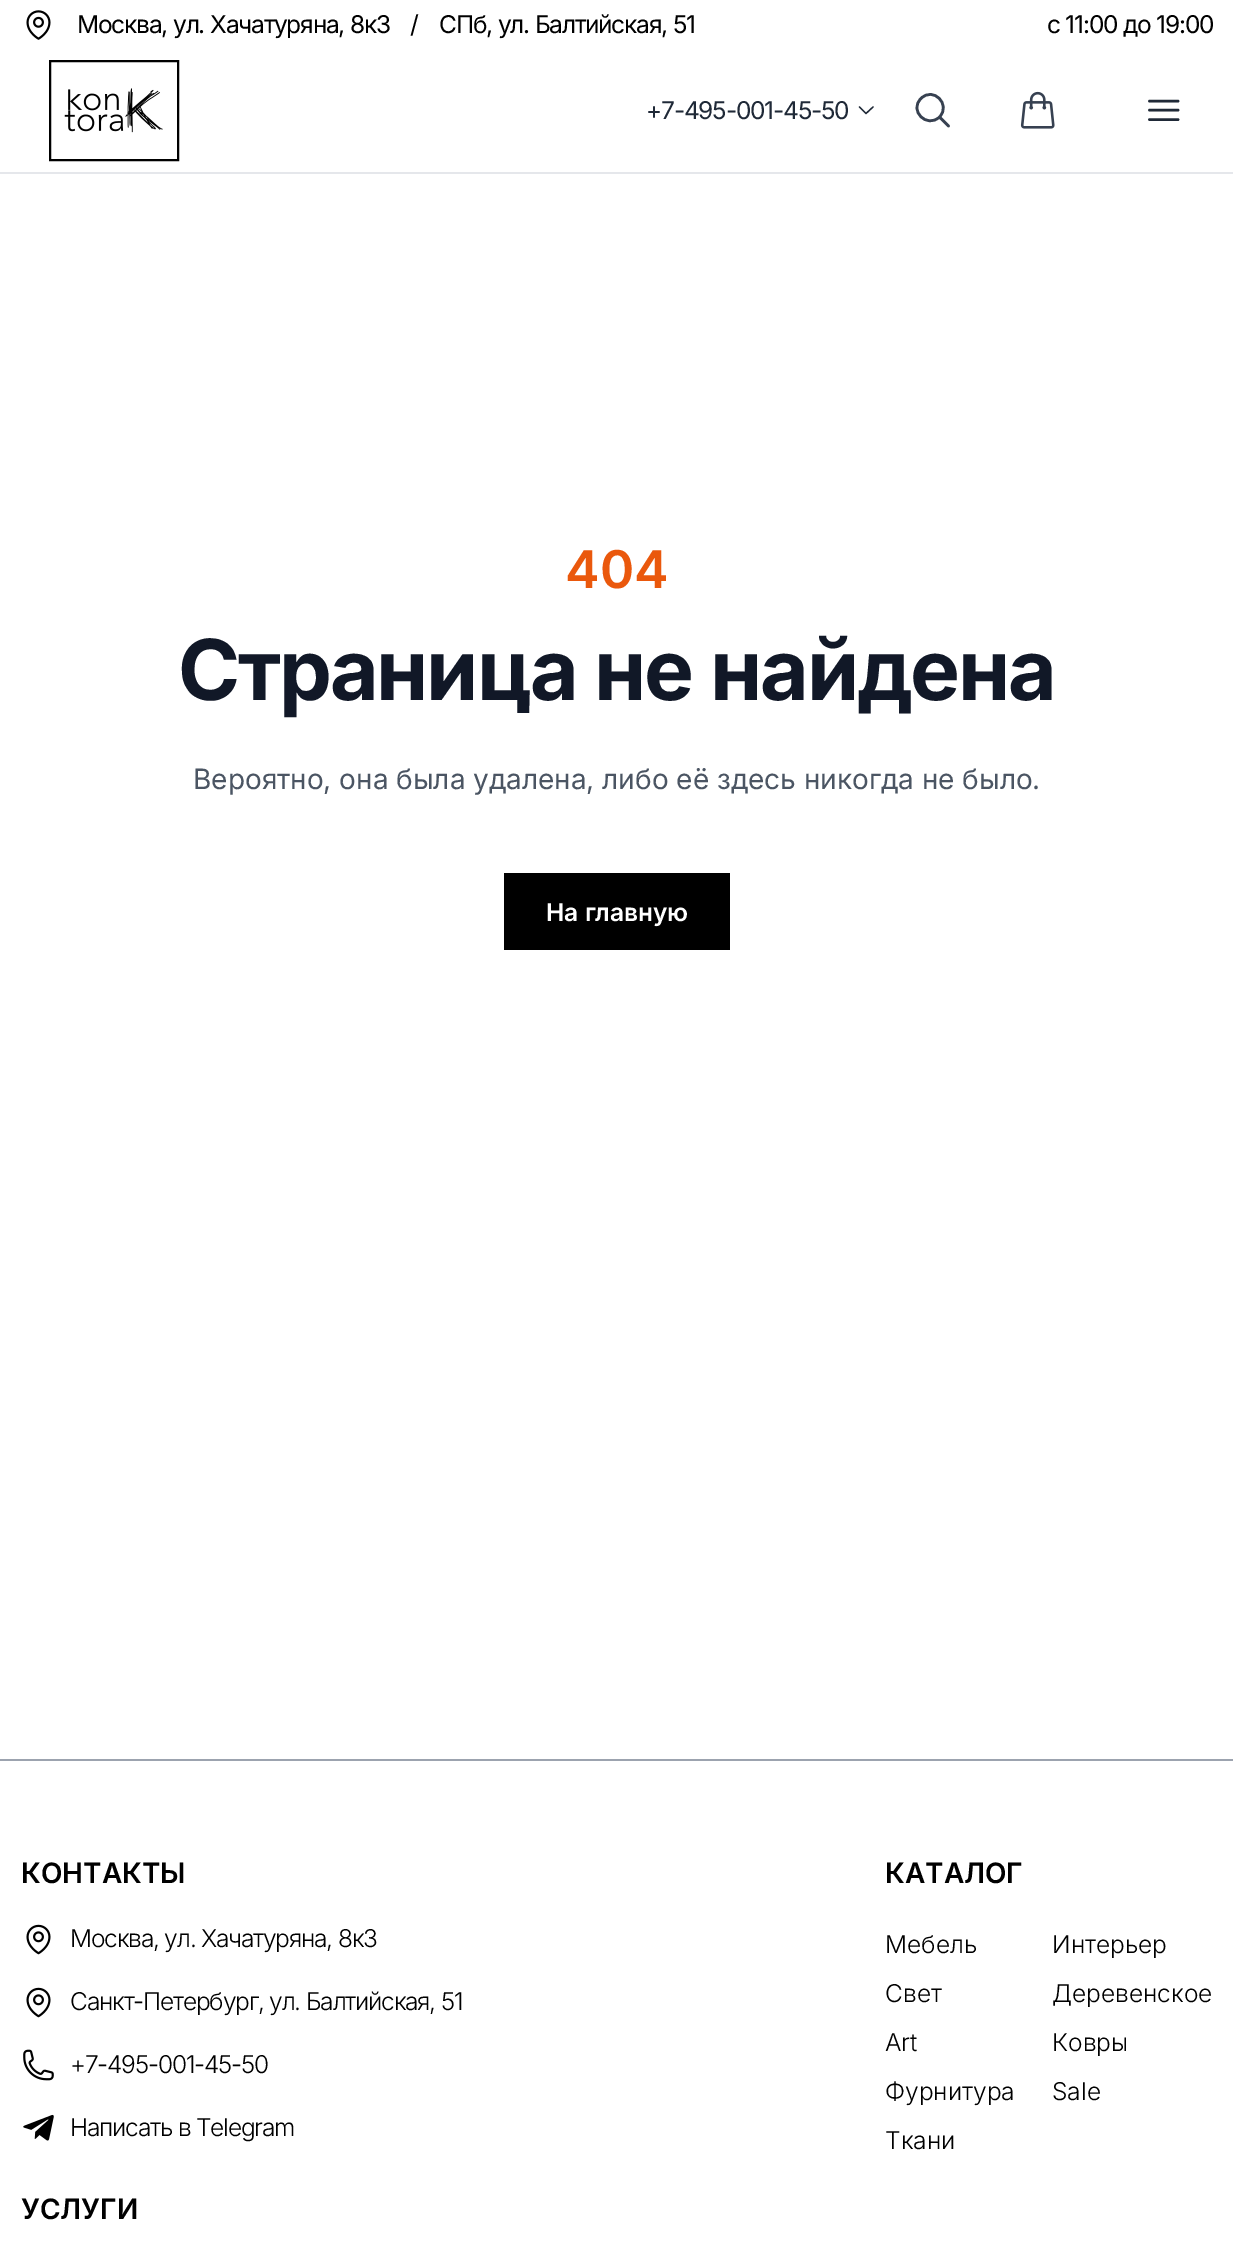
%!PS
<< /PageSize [1233 2263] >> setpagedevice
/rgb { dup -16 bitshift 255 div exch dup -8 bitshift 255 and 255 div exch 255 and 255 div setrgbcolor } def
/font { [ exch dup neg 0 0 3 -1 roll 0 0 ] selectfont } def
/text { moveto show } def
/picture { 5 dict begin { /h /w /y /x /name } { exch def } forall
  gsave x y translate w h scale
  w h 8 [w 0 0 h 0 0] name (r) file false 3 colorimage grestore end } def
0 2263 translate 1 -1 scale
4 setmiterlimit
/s1 { /Inter-SemiBold 52 font 16#EA580C rgb } def
/s2 { /Inter-Regular 28 font 16#4B5563 rgb } def
/s3 { /Inter-SemiBold 24.5 font 16#FFFFFF rgb } def
/s4 { /Inter-SemiBold 28 font 16#000000 rgb } def
/s5 { /Inter-Light 24.5 font 16#000000 rgb } def
16#FFFFFF rgb
0 0 1233 2263 rectfill
(pic1.raw) 26 10 25 30 picture
/Inter-Regular 24.5 font
16#000000 rgb
77 33 moveto -1.2 0 (Москва, ул. Хачатуряна, 8к3) ashow
410 33 moveto -1.2 0 (/) ashow
439 33 moveto -1.2 0 (СПб, ул. Балтийская, 51) ashow
1047 33 moveto -1.2 0 (с 11:00 до 19:00) ashow
16#E5E7EB rgb
0 172 1233 2 rectfill
16#000000 rgb
2 setlinewidth
50 61 128 99 rectstroke
(pic2.raw) 64 88 99 45 picture
16#1F2937 rgb
646 119 moveto -1.2 0 (+7-495-001-45-50) ashow
1.3 setlinewidth
1 setlinecap
1 setlinejoin
873 107 moveto 866 113.5 lineto 859.5 107 lineto stroke
16#374151 rgb
2.6 setlinewidth
948.5 126 moveto 939.5 117 lineto 939.5 117 moveto 951.5 104.5 933 86 921 98.5 curveto 908.5 110.5 927 129 939.5 117 curveto closepath stroke
(pic3.raw) 1020 91 35 38 picture
16#1F2937 rgb
1149.5 101 moveto 1178 101 lineto 1149.5 110 moveto 1178 110 lineto 1149.5 119.5 moveto 1178 119.5 lineto stroke
s1
(404) 565 588 text
/Inter-Bold 84 font
16#111827 rgb
178 700 moveto -2.1 0 (Страница не найдена) ashow
s2
(Вероятно, она была удалена, либо её здесь никогда не было.) 193 789 text
16#000000 rgb
504 873 226 77 rectfill
s3
(На главную) 546 921 text
16#9CA3AF rgb
0 1759 1233 2 rectfill
s4
(КОНТАКТЫ) 21 1883 text
(pic4.raw) 26 1924 25 31 picture
/Inter-Light 24.5 font
70 1947 moveto -1.2 0 (Москва, ул. Хачатуряна, 8к3) ashow
(pic4.raw) 26 1987 25 31 picture
70 2010 moveto -1.2 0 (Санкт-Петербург, ул. Балтийская, 51) ashow
(pic5.raw) 23 2049 31 32 picture
70 2073 moveto -1.2 0 (+7-495-001-45-50) ashow
(pic6.raw) 23 2114 31 27 picture
70 2136 moveto -1.2 0 (Написать в Telegram) ashow
s4
(КАТАЛОГ) 885 1883 text
s5
(Мебель) 885 1953 text
(Интерьер) 1052 1953 text
(Свет) 885 2002 text
(Деревенское) 1052 2002 text
(Art) 885 2051 text
(Ковры) 1052 2051 text
(Фурнитура) 885 2100 text
(Sale) 1052 2100 text
(Ткани) 885 2149 text
s4
(УСЛУГИ) 21 2219 text
showpage
